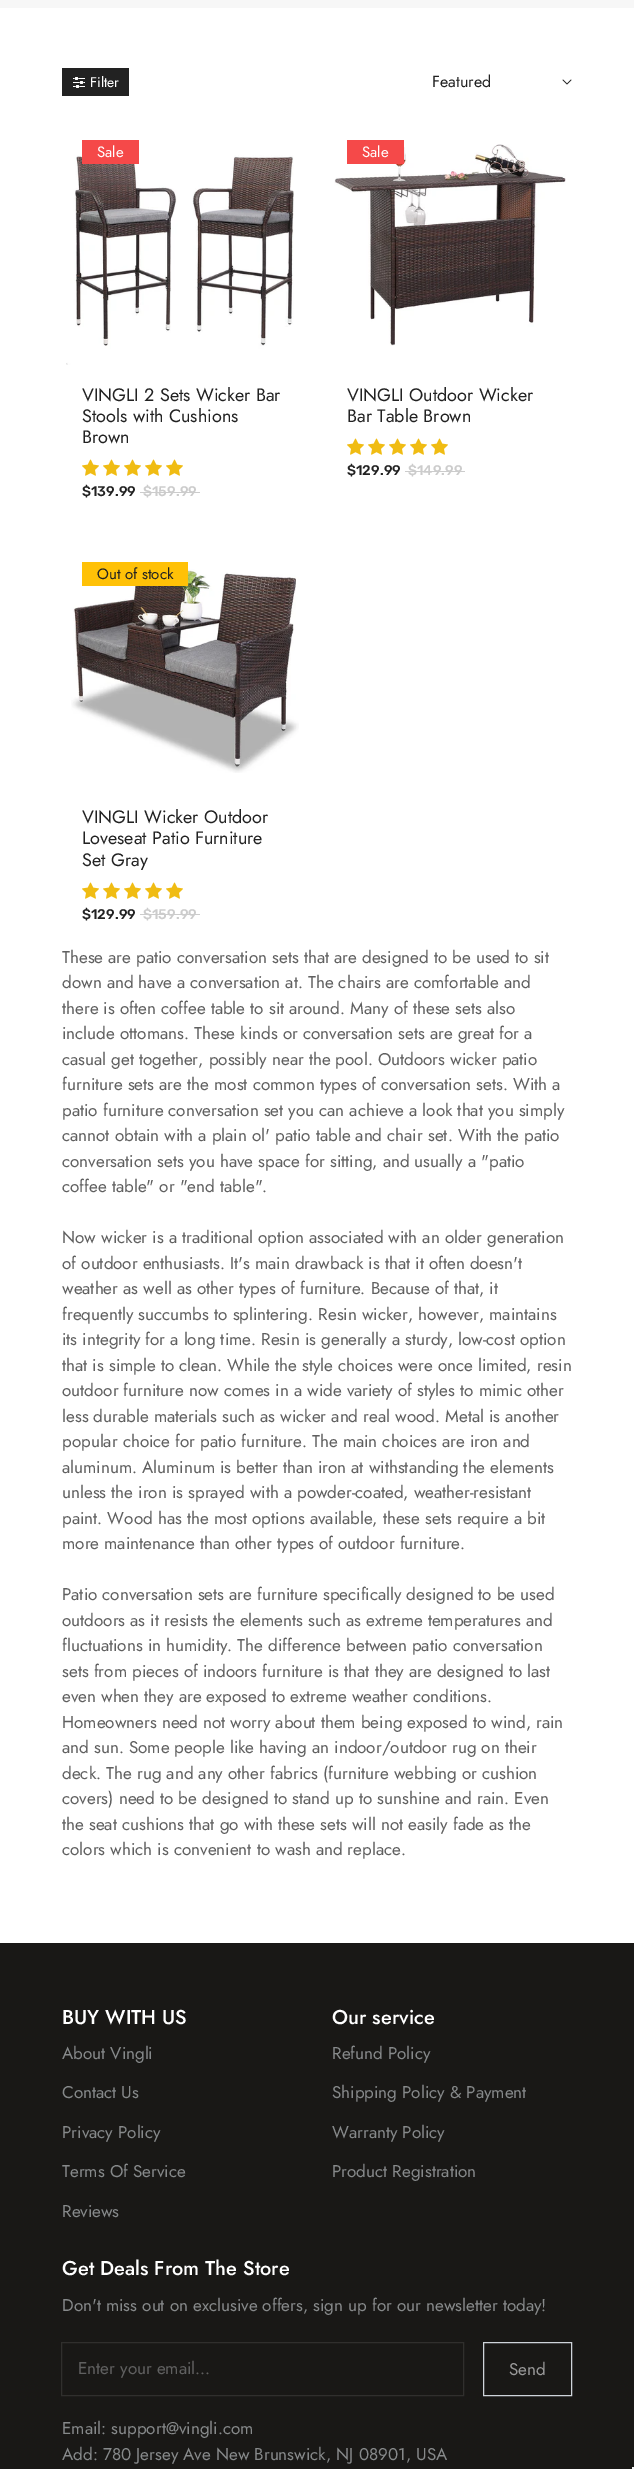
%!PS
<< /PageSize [634 2469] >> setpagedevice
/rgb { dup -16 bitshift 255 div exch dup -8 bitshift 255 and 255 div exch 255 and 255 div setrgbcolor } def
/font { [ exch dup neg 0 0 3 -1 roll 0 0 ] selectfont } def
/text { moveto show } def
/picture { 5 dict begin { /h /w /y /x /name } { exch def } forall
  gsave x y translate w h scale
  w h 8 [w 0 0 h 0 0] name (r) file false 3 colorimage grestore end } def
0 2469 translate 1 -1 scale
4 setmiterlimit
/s1 { /Jost-Regular 14 font 16#FFFFFF rgb } def
/s2 { /Jost-Regular 16 font 16#222222 rgb } def
/s3 { /Jost-Regular 15 font 16#FFFFFF rgb } def
/s4 { /Jost-Regular 18 font 16#222222 rgb } def
/s5 { /Rubik-Medium 14 font 16#222222 rgb } def
/s6 { /Rubik-Medium 14 font 16#CCCCCC rgb } def
/s7 { /Jost-Regular 15 font 16#222222 rgb } def
/s8 { /Jost-Regular 17 font 16#606060 rgb } def
/s9 { /Jost-Medium 20 font 16#FFFFFF rgb } def
/s10 { /Jost-Regular 17 font 16#86898A rgb } def
/s11 { /Jost-Regular 17 font 16#999999 rgb } def
16#FFFFFF rgb
0 0 634 2469 rectfill
16#F7F7F7 rgb
0 0 634 8 rectfill
16#222222 rgb
62 68 67 28 rectfill
(pic1.raw) 73 77 12 11 picture
s1
(Filter) 90 87 text
s2
(Featured) 432 87 text
(pic2.raw) 562 79 10 6 picture
(pic3.raw) 66 155 228 210 picture
16#F54949 rgb
82 140 57 24 rectfill
s3
(Sale) 97 157 text
s4
(VINGLI 2 Sets Wicker Bar) 82 401 text
(Stools with Cushions) 82 422 text
(Brown) 82 443 text
(pic4.raw) 82 459 17 17 picture
(pic4.raw) 103 459 17 17 picture
(pic4.raw) 124 459 17 17 picture
(pic4.raw) 145 459 17 17 picture
(pic4.raw) 166 459 17 17 picture
s5
($139.99) 82 496 text
s6
($159.99) 143 496 text
140 492 60 1 rectfill
(pic5.raw) 334 144 232 202 picture
16#F54949 rgb
347 140 57 24 rectfill
s3
(Sale) 362 157 text
s4
(VINGLI Outdoor Wicker) 347 401 text
(Bar Table Brown) 347 422 text
(pic4.raw) 347 438 17 17 picture
(pic4.raw) 368 438 17 17 picture
(pic4.raw) 389 438 17 17 picture
(pic4.raw) 410 438 17 17 picture
(pic4.raw) 431 438 17 17 picture
s5
($129.99) 347 475 text
s6
($149.99) 408 475 text
405 471 60 1 rectfill
(pic6.raw) 71 564 228 209 picture
16#FFC107 rgb
82 562 106 24 rectfill
s7
(Out of stock) 97 579 text
s4
(VINGLI Wicker Outdoor) 82 823 text
(Loveseat Patio Furniture) 82 844 text
(Set Gray) 82 866 text
(pic4.raw) 82 882 17 17 picture
(pic4.raw) 103 882 17 17 picture
(pic4.raw) 124 882 17 17 picture
(pic4.raw) 145 882 17 17 picture
(pic4.raw) 166 882 17 17 picture
s5
($129.99) 82 919 text
s6
($159.99) 143 919 text
140 914 60 1 rectfill
s8
(These are patio conversation sets that are designed to be used to sit) 62 963 text
(down and have a conversation at. The chairs are comfortable and) 62 988 text
(there is often coffee table to sit around. Many of these sets also) 62 1014 text
(include ottomans. These kinds or conversation sets are great for a) 62 1039 text
(casual get together, possibly near the pool. Outdoors wicker patio) 62 1065 text
(furniture sets are the most common types of conversation sets. With a) 62 1090 text
(patio furniture conversation set you can achieve a look that you simply) 62 1116 text
(cannot obtain with a plain ol' patio table and chair set. With the patio) 62 1141 text
(conversation sets you have space for sitting, and usually a "patio) 62 1167 text
(coffee table" or "end table".) 62 1192 text
(Now wicker is a traditional option associated with an older generation) 62 1243 text
(of outdoor enthusiasts. It's main drawback is that it often doesn't) 62 1269 text
(weather as well as other types of furniture. Because of that, it) 62 1294 text
(frequently succumbs to splintering. Resin wicker, however, maintains) 62 1320 text
(its integrity for a long time. Resin is generally a sturdy, low-cost option) 62 1345 text
(that is simple to clean. While the style choices were once limited, resin) 62 1371 text
(outdoor furniture now comes in a wide variety of styles to mimic other) 62 1396 text
(less durable materials such as wicker and real wood. Metal is another) 62 1422 text
(popular choice for patio furniture. The main choices are iron and) 62 1447 text
(aluminum. Aluminum is better than iron at withstanding the elements) 62 1473 text
(unless the iron is sprayed with a powder-coated, weather-resistant) 62 1498 text
(paint. Wood has the most options available, these sets require a bit) 62 1524 text
(more maintenance than other types of outdoor furniture.) 62 1549 text
(Patio conversation sets are furniture specifically designed to be used) 62 1600 text
(outdoors as it resists the elements such as extreme temperatures and) 62 1626 text
(fluctuations in humidity. The difference between patio conversation) 62 1651 text
(sets from pieces of indoors furniture is that they are designed to last) 62 1677 text
(even when they are exposed to extreme weather conditions.) 62 1702 text
(Homeowners need not worry about them being exposed to wind, rain) 62 1728 text
(and sun. Some people like having an indoor/outdoor rug on their) 62 1753 text
(deck. The rug and any other fabrics \(furniture webbing or cushion) 62 1779 text
(covers\) need to be designed to stand up to sunshine and rain. Even) 62 1804 text
(the seat cushions that go with these sets will not easily fade as the) 62 1830 text
(colors which is convenient to wash and replace.) 62 1855 text
16#191816 rgb
0 1943 634 526 rectfill
s9
(BUY WITH US) 62 2024 text
s10
(About Vingli) 62 2059 text
(Contact Us) 62 2098 text
(Privacy Policy) 62 2138 text
(Terms Of Service) 62 2177 text
(Reviews) 62 2217 text
s9
(Our service) 332 2024 text
s10
(Refund Policy) 332 2059 text
(Shipping Policy & Payment) 332 2098 text
(Warranty Policy) 332 2138 text
(Product Registration) 332 2177 text
s9
(Get Deals From The Store) 62 2275 text
s10
(Don't miss out on exclusive offers, sign up for our newsletter today!) 62 2311 text
16#302F2D rgb
61.5 2342.5 402 53 rectstroke
s8
(Enter your email...) 78 2374 text
16#CED4DA rgb
483.5 2342.5 88 53 rectstroke
s11
(Send) 509 2375 text
s10
(Email: support@vingli.com) 62 2434 text
(Add: 780 Jersey Ave New Brunswick, NJ 08901, USA) 62 2460 text
16#F5F5F5 rgb
632 2467 2 2 rectfill
showpage
